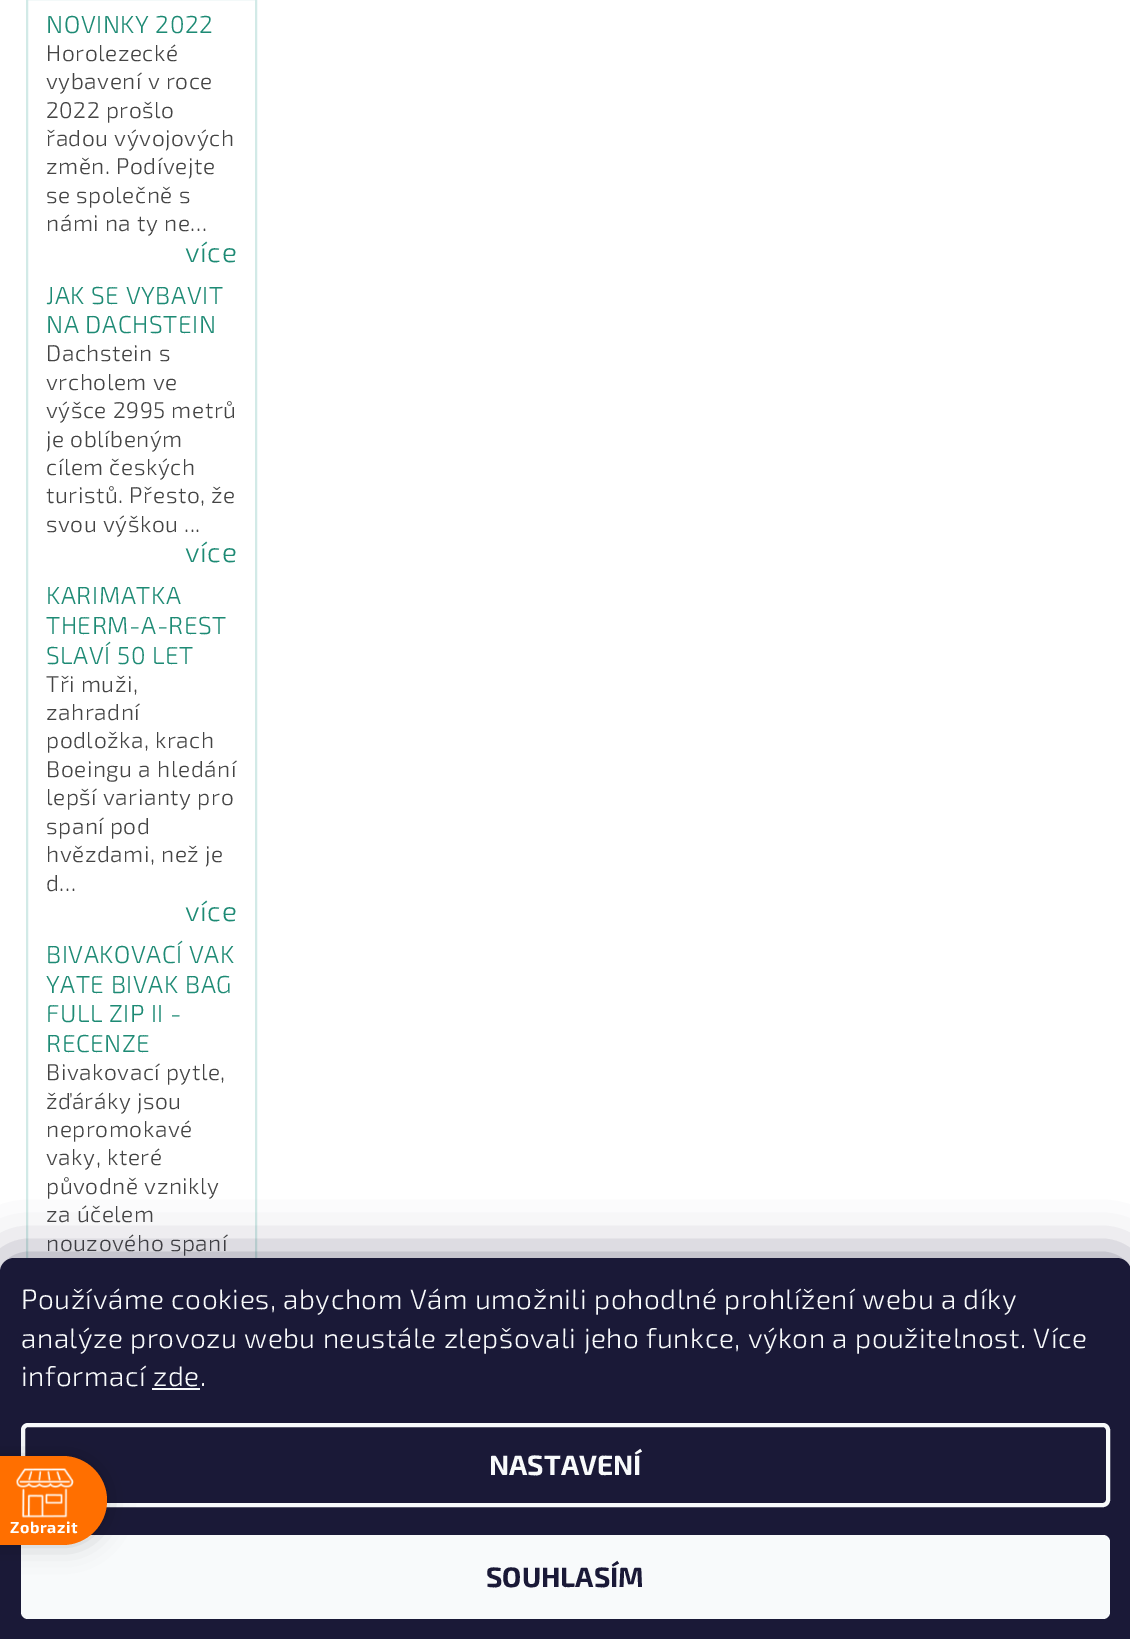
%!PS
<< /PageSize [1130 1639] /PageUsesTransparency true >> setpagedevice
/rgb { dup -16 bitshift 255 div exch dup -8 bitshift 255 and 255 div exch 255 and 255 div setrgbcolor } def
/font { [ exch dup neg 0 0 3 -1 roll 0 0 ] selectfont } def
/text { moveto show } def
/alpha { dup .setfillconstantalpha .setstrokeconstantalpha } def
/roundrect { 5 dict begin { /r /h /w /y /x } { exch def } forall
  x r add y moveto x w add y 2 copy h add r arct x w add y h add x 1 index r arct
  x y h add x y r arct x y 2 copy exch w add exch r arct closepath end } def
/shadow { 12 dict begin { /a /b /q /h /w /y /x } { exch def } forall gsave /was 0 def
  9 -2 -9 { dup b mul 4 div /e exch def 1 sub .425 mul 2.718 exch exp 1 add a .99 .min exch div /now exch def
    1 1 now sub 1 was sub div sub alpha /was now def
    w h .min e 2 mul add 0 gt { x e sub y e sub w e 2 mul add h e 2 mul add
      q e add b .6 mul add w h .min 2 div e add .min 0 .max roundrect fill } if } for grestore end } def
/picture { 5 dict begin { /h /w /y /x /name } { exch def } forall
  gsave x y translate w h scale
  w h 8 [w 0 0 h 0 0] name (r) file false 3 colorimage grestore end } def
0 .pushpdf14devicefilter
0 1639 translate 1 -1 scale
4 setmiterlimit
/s1 { /Exo2-Bold 28 font 16#F8FAFB rgb } def
/s2 { /Exo2-Bold 28 font 16#1A1937 rgb } def
16#FFFFFF rgb
0 0 1130 1639 rectfill
16#D2EAE7 rgb
2 setlinewidth
27 -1 229 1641 rectstroke
/Exo2-Light 24.5 font
16#1D8A74 rgb
46 33 moveto 0.55 0 (NOVINKY 2022) ashow
/Exo2-Light 22.75 font
16#444444 rgb
46 61 moveto 0.55 0 (Horolezecké) ashow
46 89 moveto 0.55 0 (vybavení v roce) ashow
46 118 moveto 0.55 0 (2022 prošlo) ashow
46 146 moveto 0.55 0 (řadou vývojových) ashow
46 174 moveto 0.55 0 (změn. Podívejte) ashow
46 203 moveto 0.55 0 (se společně s) ashow
46 231 moveto 0.55 0 (námi na ty ne...) ashow
/Exo2-Light 28 font
16#1D8A74 rgb
185 262 moveto 0.55 0 (více) ashow
/Exo2-Light 24.5 font
46 304 moveto 0.55 0 (JAK SE VYBAVIT) ashow
46 333 moveto 0.55 0 (NA DACHSTEIN) ashow
/Exo2-Light 22.75 font
16#444444 rgb
46 361 moveto 0.55 0 (Dachstein s) ashow
46 390 moveto 0.55 0 (vrcholem ve) ashow
46 418 moveto 0.55 0 (výšce 2995 metrů) ashow
46 447 moveto 0.55 0 (je oblíbeným) ashow
46 475 moveto 0.55 0 (cílem českých) ashow
46 503 moveto 0.55 0 (turistů. Přesto, že) ashow
46 532 moveto 0.55 0 (svou výškou ...) ashow
/Exo2-Light 28 font
16#1D8A74 rgb
185 562 moveto 0.55 0 (více) ashow
/Exo2-Light 24.5 font
46 604 moveto 0.55 0 (KARIMATKA) ashow
46 634 moveto 0.55 0 (THERM-A-REST) ashow
46 664 moveto 0.55 0 (SLAVÍ 50 LET) ashow
/Exo2-Light 22.75 font
16#444444 rgb
46 692 moveto 0.55 0 (Tři muži,) ashow
46 720 moveto 0.55 0 (zahradní) ashow
46 748 moveto 0.55 0 (podložka, krach) ashow
46 777 moveto 0.55 0 (Boeingu a hledání) ashow
46 805 moveto 0.55 0 (lepší varianty pro) ashow
46 834 moveto 0.55 0 (spaní pod) ashow
46 862 moveto 0.55 0 (hvězdami, než je) ashow
46 891 moveto 0.55 0 (d...) ashow
/Exo2-Light 28 font
16#1D8A74 rgb
185 921 moveto 0.55 0 (více) ashow
/Exo2-Light 24.5 font
46 963 moveto 0.55 0 (BIVAKOVACÍ VAK) ashow
46 993 moveto 0.55 0 (YATE BIVAK BAG) ashow
46 1022 moveto 0.55 0 (FULL ZIP II -) ashow
46 1052 moveto 0.55 0 (RECENZE) ashow
/Exo2-Light 22.75 font
16#444444 rgb
46 1080 moveto 0.55 0 (Bivakovací pytle,) ashow
46 1109 moveto 0.55 0 (žďáráky jsou) ashow
46 1137 moveto 0.55 0 (nepromokavé) ashow
46 1165 moveto 0.55 0 (vaky, které) ashow
46 1194 moveto 0.55 0 (původně vznikly) ashow
46 1222 moveto 0.55 0 (za účelem) ashow
46 1251 moveto 0.55 0 (nouzového spaní) ashow
16#1B1939 rgb
0 1258 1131 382 14 26 0.5 shadow
16#1A1937 rgb
14 1258 moveto 1117 1258 lineto 1124.5 1258 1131 1264.5 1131 1272 curveto 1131 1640 lineto 0 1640 lineto 0 1272 lineto 0 1264.5 6.5 1258 14 1258 curveto closepath fill
/Exo2-Light 28 font
16#F8FAFB rgb
21 1309 moveto 0.55 0 (Používáme cookies, abychom Vám umožnili pohodlné prohlížení webu a díky) ashow
21 1348 moveto 0.55 0 (analýze provozu webu neustále zlepšovali jeho funkce, výkon a použitelnost. Více) ashow
21 1386 moveto 0.55 0 (informací zde.) ashow
152 1388 48 2 rectfill
4 setlinewidth
23 1425 1085 80 5 roundrect stroke
s1
(NASTAVENÍ) 489 1475 text
21 1535 1089 84 7 roundrect fill
s2
(SOUHLASÍM) 486 1587 text
16#000000 rgb
-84 1456 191 89 44.5 13 0.2 shadow
16#FF6F00 rgb
-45 1456 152 89 44.5 roundrect fill
(pic1.raw) 16 1468 58 50 picture
/Exo2-Bold 16 font
16#FFFFFF rgb
10 1533 moveto 0.55 0 (Zobrazit) ashow
.poppdf14devicefilter showpage
